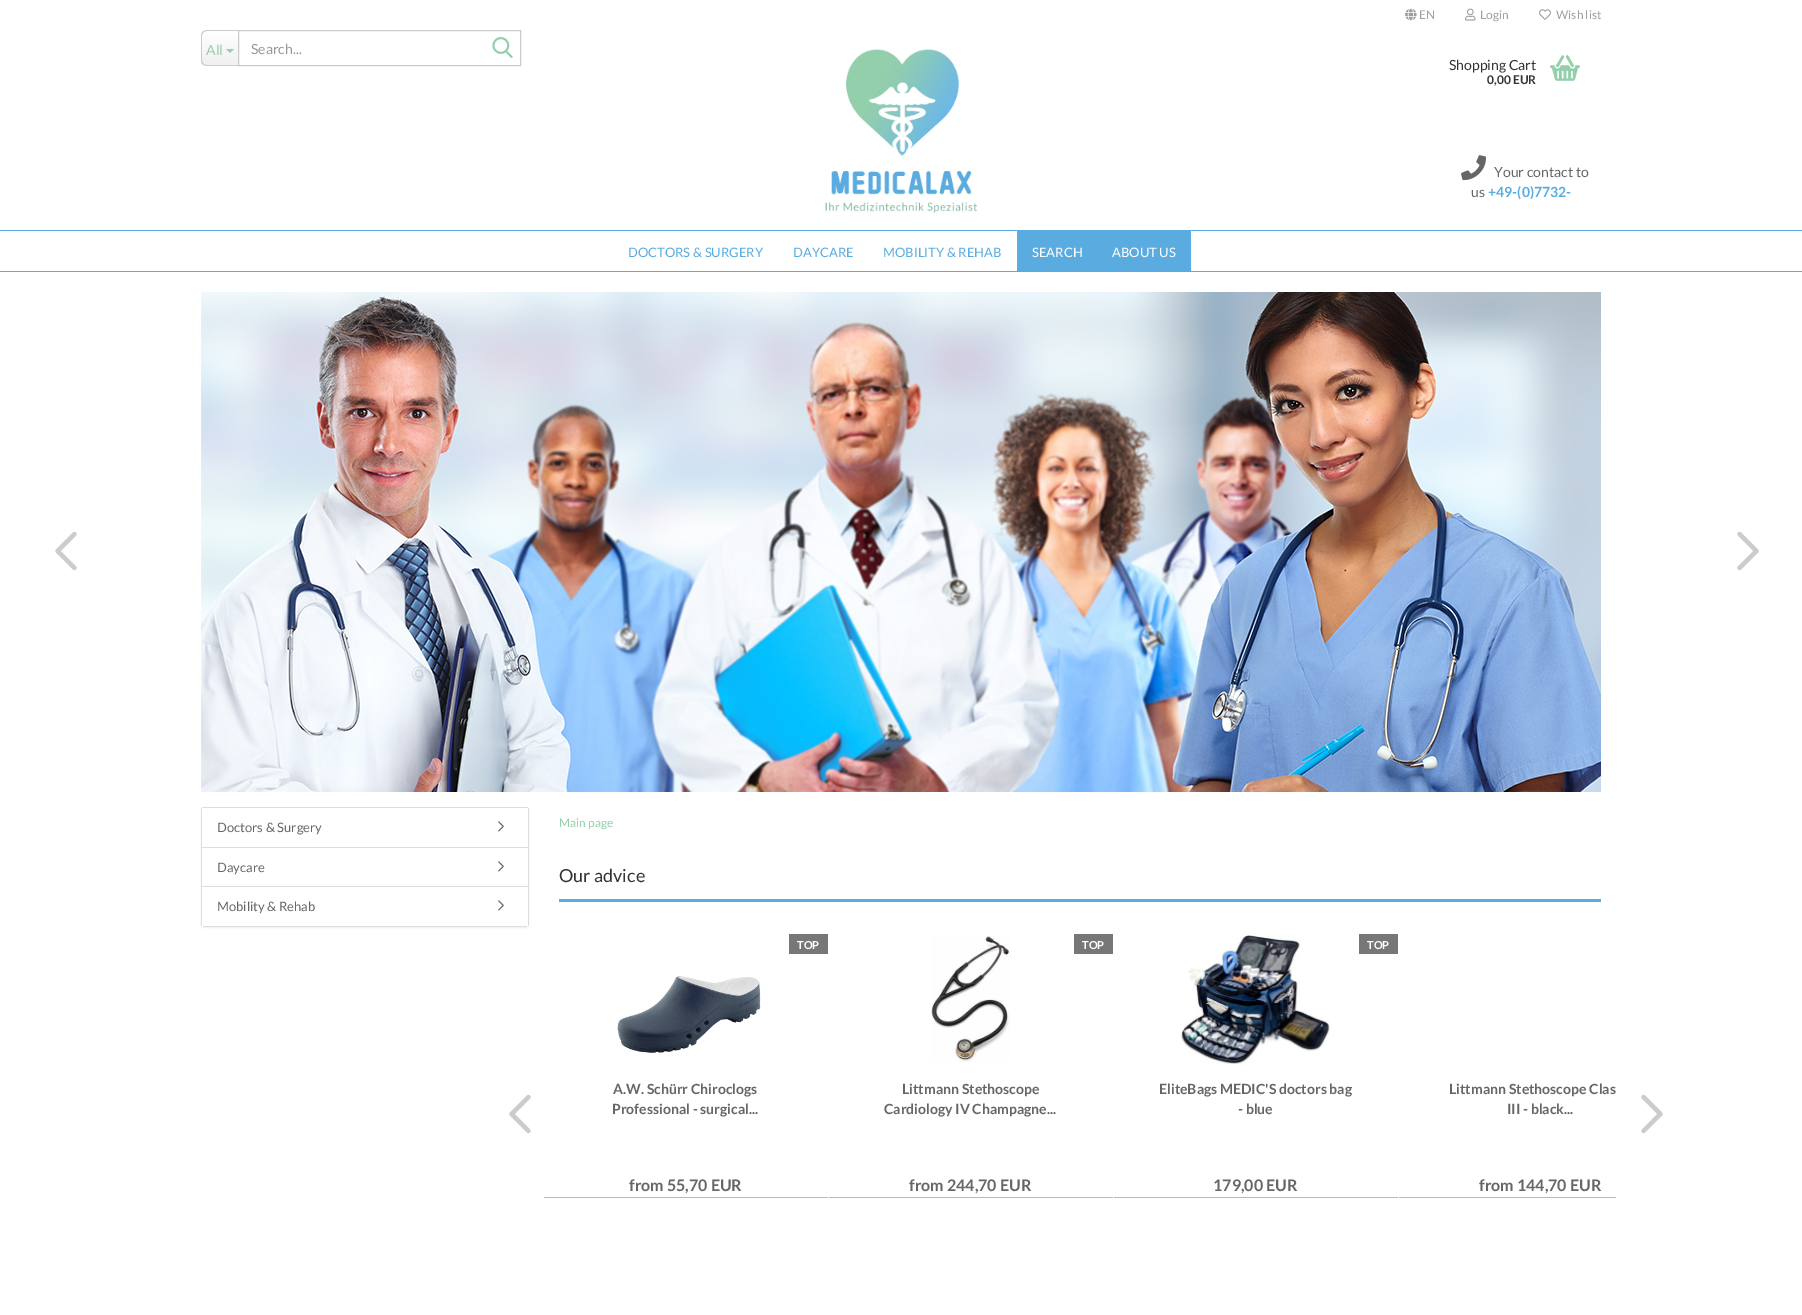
%!PS
<< /PageSize [1802 1315] /PageUsesTransparency true >> setpagedevice
/rgb { dup -16 bitshift 255 div exch dup -8 bitshift 255 and 255 div exch 255 and 255 div setrgbcolor } def
/font { [ exch dup neg 0 0 3 -1 roll 0 0 ] selectfont } def
/text { moveto show } def
/alpha { dup .setfillconstantalpha .setstrokeconstantalpha } def
/roundrect { 5 dict begin { /r /h /w /y /x } { exch def } forall
  x r add y moveto x w add y 2 copy h add r arct x w add y h add x 1 index r arct
  x y h add x y r arct x y 2 copy exch w add exch r arct closepath end } def
/shadow { 12 dict begin { /a /b /q /h /w /y /x } { exch def } forall gsave /was 0 def
  9 -2 -9 { dup b mul 4 div /e exch def 1 sub .425 mul 2.718 exch exp 1 add a .99 .min exch div /now exch def
    1 1 now sub 1 was sub div sub alpha /was now def
    w h .min e 2 mul add 0 gt { x e sub y e sub w e 2 mul add h e 2 mul add
      q e add b .6 mul add w h .min 2 div e add .min 0 .max roundrect fill } if } for grestore end } def
/picture { 5 dict begin { /h /w /y /x /name } { exch def } forall
  gsave x y translate w h scale
  w h 8 [w 0 0 h 0 0] name (r) file false 3 colorimage grestore end } def
0 .pushpdf14devicefilter
0 1315 translate 1 -1 scale
4 setmiterlimit
/s1 { /Lato-Regular 12 font 16#9F9F9F rgb } def
/s2 { /Lato-Regular 14 font 16#94CFAB rgb } def
/s3 { /Lato-Regular 14 font 16#999999 rgb } def
/s4 { /Lato-Regular 14 font 16#333333 rgb } def
/s5 { /Lato-Bold 12 font 16#333333 rgb } def
/s6 { /Lato-Regular 14 font 16#666666 rgb } def
/s7 { /Lato-Bold 14 font 16#5AACE0 rgb } def
/s8 { /Lato-Regular 13 font 16#5AACE0 rgb } def
/s9 { /Lato-Regular 13 font 16#FFFFFF rgb } def
/s10 { /Lato-Regular 13 font 16#666666 rgb } def
/s11 { /Lato-Regular 12 font 16#94CFAB rgb } def
/s12 { /Lato-Regular 18 font 16#333333 rgb } def
/s13 { /Lato-Bold 11 font 16#FFFFFF rgb } def
/s14 { /Lato-Bold 14 font 16#666666 rgb } def
/s15 { /Lato-Bold 16 font 16#666666 rgb } def
16#FFFFFF rgb
0 0 1802 1315 rectfill
(pic1.raw) 1405 8 12 13 picture
s1
(EN) 1419 19 text
(pic2.raw) 1465 8 11 13 picture
(Login) 1480 19 text
(pic3.raw) 1539 9 12 11 picture
(Wish list) 1556 19 text
gsave
207 30 moveto 238 30 lineto 238 66 lineto 207 66 lineto 203.5 66 201 63.5 201 60 curveto 201 36 lineto 201 32.5 203.5 30 207 30 curveto closepath clip newpath
gsave 201 31 moveto 238 31 lineto 238 65 lineto 201 65 lineto closepath clip newpath
<< /ShadingType 2 /ColorSpace /DeviceRGB /Coords [220 31 220 65] /Extend [true true] /Function << /FunctionType 2 /Domain [0 1] /C0 [1 1 1] /C1 [0.941 0.941 0.941] /N 1 >> >> shfill grestore
grestore
16#CCCCCC rgb
207 30 moveto 238 30 lineto 238 66 lineto 207 66 lineto 203.5 66 201 63.5 201 60 curveto 201 36 lineto 201 32.5 203.5 30 207 30 curveto closepath 207 31 moveto 238 31 lineto 238 65 lineto 207 65 lineto 204 65 202 63 202 60 curveto 202 36 lineto 202 33 204 31 207 31 curveto closepath eofill
s2
(All) 206 55 text
226 49 moveto 234 49 lineto 230 53 lineto closepath fill
16#CCCCCC rgb
238.5 30.5 282 35 rectstroke
s3
(Search...) 251 54 text
(pic4.raw) 492 37 21 21 picture
(pic5.raw) 825 49 153 164 picture
s4
(Shopping Cart) 1449 70 text
s5
(0,00 EUR) 1487 84 text
(pic6.raw) 1550 55 30 26 picture
(pic7.raw) 1461 155 25 26 picture
s6
(Your contact to) 1494 177 text
(us) 1471 197 text
s7
(+49-\(0\)7732-) 1488 197 text
0 230 1802 1 rectfill
0 271 1802 1 rectfill
s8
(DOCTORS & SURGERY) 628 257 text
(DAYCARE) 793 257 text
(MOBILITY & REHAB) 883 257 text
1017 231 174 40 rectfill
s9
(SEARCH) 1032 257 text
(ABOUT US) 1112 257 text
(pic8.raw) 55 531 22 40 picture
(pic9.raw) 201 292 1400 500 picture
(pic10.raw) 1737 531 22 40 picture
16#000000 rgb
201 808 328 120 2 0.5 0.05 shadow
16#FFFFFF rgb
201 807 328 120 2 roundrect fill
16#DDDDDD rgb
202 807 326 1 rectfill
528 808 1 118 rectfill
201 808 1 118 rectfill
202 847 326 1 rectfill
s10
(Doctors & Surgery) 217 832 text
(pic11.raw) 498 821 6 11 picture
16#DDDDDD rgb
202 886 326 1 rectfill
s10
(Daycare) 217 872 text
(pic11.raw) 498 861 6 11 picture
16#DDDDDD rgb
203 926 324 1 rectfill
s10
(Mobility & Rehab) 217 911 text
(pic11.raw) 498 900 6 11 picture
s11
(Main page) 559 827 text
16#5AACE0 rgb
559 899 1042 3 rectfill
s12
(Our advice) 559 882 text
(pic8.raw) 509 1094 22 40 picture
16#94CFAB rgb
544 1197 284 1 rectfill
16#777777 rgb
789 934 39 20 rectfill
s13
(TOP) 797 949 text
(pic12.raw) 617 976 144 77 picture
s14
(A.W. Schürr Chiroclogs) 613 1094 text
(Professional - surgical...) 612 1114 text
s15
(from 55,70 EUR) 629 1191 text
16#94CFAB rgb
829 1197 284 1 rectfill
(pic13.raw) 931 936 80 126 picture
16#777777 rgb
1074 934 39 20 rectfill
s13
(TOP) 1082 949 text
s14
(Littmann Stethoscope) 902 1094 text
(Cardiology IV Champagne...) 884 1114 text
s15
(from 244,70 EUR) 909 1191 text
16#94CFAB rgb
1114 1197 284 1 rectfill
(pic14.raw) 1181 935 149 129 picture
16#777777 rgb
1359 934 39 20 rectfill
s13
(TOP) 1367 949 text
s14
(EliteBags MEDIC'S doctors bag) 1159 1094 text
(- blue) 1238 1114 text
s15
(179,00 EUR) 1213 1191 text
16#94CFAB rgb
1399 1197 217 1 rectfill
s14
(Littmann Stethoscope Clas) 1449 1094 text
(III - black...) 1507 1114 text
s15
(from 144,70 EUR) 1479 1191 text
(pic10.raw) 1641 1094 22 40 picture
.poppdf14devicefilter showpage
